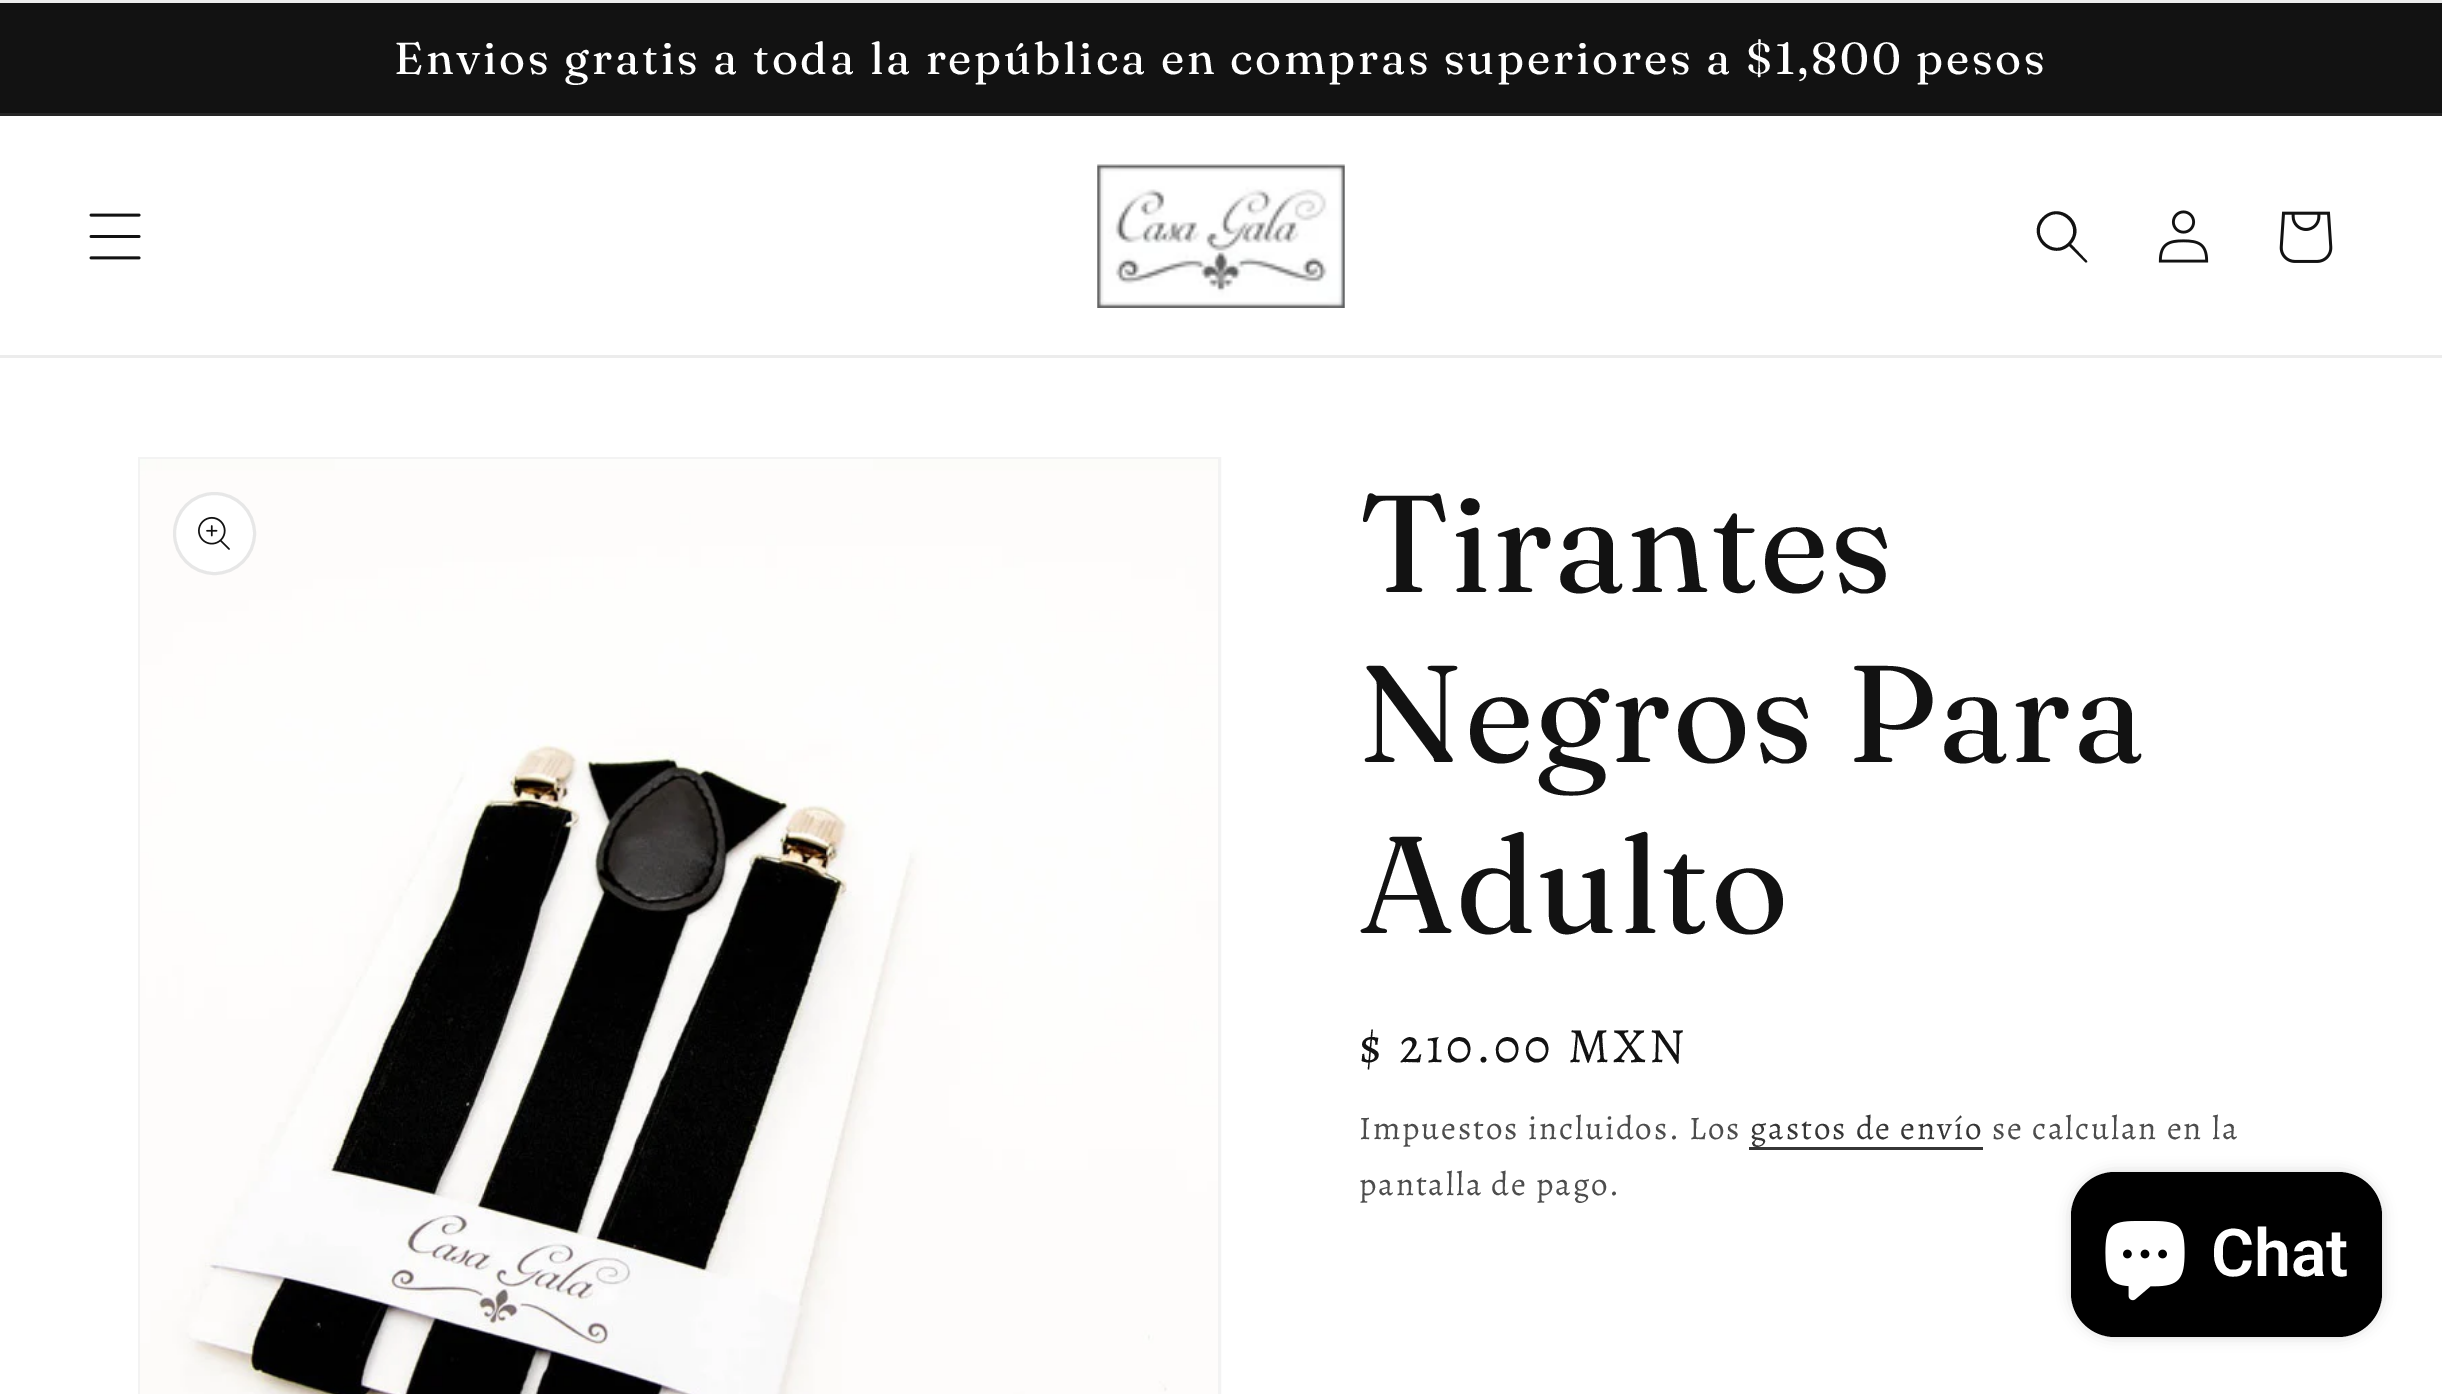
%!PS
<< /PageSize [2442 1394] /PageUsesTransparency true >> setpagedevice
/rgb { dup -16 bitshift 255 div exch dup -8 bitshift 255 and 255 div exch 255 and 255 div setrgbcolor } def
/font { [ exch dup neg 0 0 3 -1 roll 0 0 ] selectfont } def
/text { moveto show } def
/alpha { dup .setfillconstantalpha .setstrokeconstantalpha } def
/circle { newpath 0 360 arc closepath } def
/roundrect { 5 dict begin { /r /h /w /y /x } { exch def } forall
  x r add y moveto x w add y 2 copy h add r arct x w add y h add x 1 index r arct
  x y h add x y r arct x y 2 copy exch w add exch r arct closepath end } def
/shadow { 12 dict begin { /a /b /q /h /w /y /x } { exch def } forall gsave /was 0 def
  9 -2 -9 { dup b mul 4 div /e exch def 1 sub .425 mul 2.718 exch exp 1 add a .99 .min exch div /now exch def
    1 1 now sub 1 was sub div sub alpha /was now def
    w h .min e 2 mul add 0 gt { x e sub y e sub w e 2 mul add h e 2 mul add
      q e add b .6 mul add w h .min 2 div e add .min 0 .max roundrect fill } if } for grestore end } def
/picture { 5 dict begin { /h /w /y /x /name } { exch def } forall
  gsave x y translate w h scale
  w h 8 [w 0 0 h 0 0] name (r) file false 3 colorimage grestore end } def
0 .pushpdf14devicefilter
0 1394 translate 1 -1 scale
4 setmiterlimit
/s1 { /Roboto-SemiBold 66 font 16#FFFFFF rgb } def
16#FFFFFF rgb
0 0 2442 1394 rectfill
16#ECECEC rgb
0 0 2442 3 rectfill
16#121212 rgb
0 3 2442 110 rectfill
16#252525 rgb
0 113 2442 3 rectfill
/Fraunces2-Regular 44.7 font
16#FFFFFF rgb
394 74 moveto 2.75 0 (Envios gratis a toda la república en compras superiores a $1,800 pesos) ashow
16#ECECEC rgb
0 355 2442 3 rectfill
(pic1.raw) 89 213 52 47 picture
(pic2.raw) 1097 164 248 144 picture
16#121212 rgb
2068 243 moveto 2053 258 2029 235 2045 219 curveto 2060 204 2084 227 2068 243 curveto 2069 246 moveto 2050 262 2025 234 2043 217 curveto 2061 200 2088 225 2071 244 curveto 2087 261 lineto 2088 262 2086 263 2085 262 curveto closepath eofill
(pic3.raw) 2158 210 51 53 picture
(pic4.raw) 2279 211 54 52 picture
16#F3F3F3 rgb
3 setlinewidth
139.5 458.5 1080 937 rectstroke
(pic5.raw) 140 459 1078 935 picture
16#FFFFFF rgb
214.5 533.5 40 circle gsave fill grestore
16#E7E7E7 rgb
stroke
(pic6.raw) 198 516 32 34 picture
/Fraunces-Regular 137.5 font
16#121212 rgb
1359 592 moveto 2 0 (Tirantes) ashow
1359 762 moveto 2 0 (Negros Para) ashow
1359 933 moveto 2 0 (Adulto) ashow
/Alegreya-Regular 49.5 font
1359 1062 moveto 3.5 0 ($ 210.00 MXN) ashow
/Alegreya-Regular 33 font
16#4D4D4D rgb
1359 1139 moveto 1.9 0 (Impuestos incluidos. Los) ashow
16#363636 rgb
1750 1139 moveto 1.9 0 (gastos de envío) ashow
1749 1147 234 3 rectfill
16#4D4D4D rgb
1992 1139 moveto 1.9 0 (se calculan en la) ashow
1359 1195 moveto 1.9 0 (pantalla de pago.) ashow
16#000000 rgb
2071 1172 311 165 44 7 0.15 shadow
2071 1172 311 165 44 roundrect fill
(pic7.raw) 2105 1221 80 80 picture
s1
(Chat) 2211 1276 text
.poppdf14devicefilter showpage
